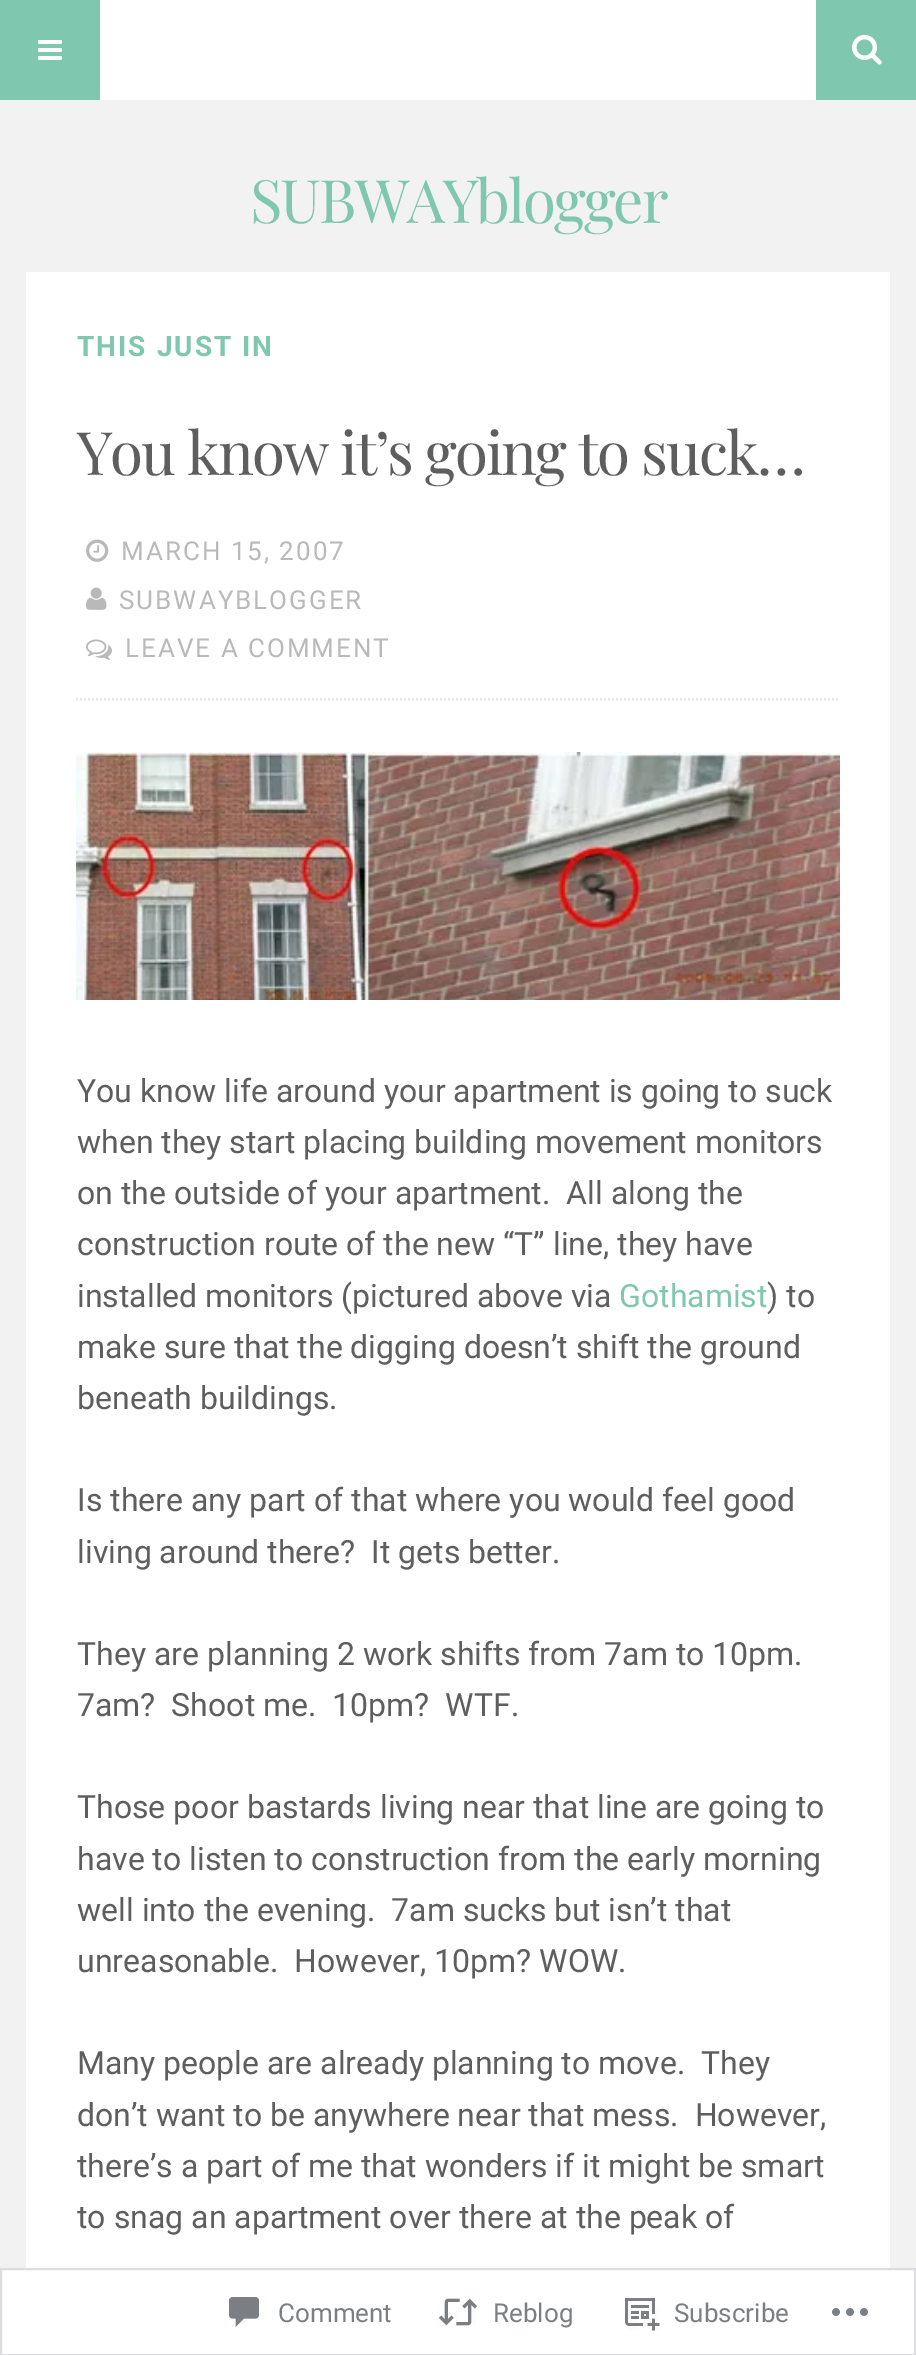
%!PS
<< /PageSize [916 2355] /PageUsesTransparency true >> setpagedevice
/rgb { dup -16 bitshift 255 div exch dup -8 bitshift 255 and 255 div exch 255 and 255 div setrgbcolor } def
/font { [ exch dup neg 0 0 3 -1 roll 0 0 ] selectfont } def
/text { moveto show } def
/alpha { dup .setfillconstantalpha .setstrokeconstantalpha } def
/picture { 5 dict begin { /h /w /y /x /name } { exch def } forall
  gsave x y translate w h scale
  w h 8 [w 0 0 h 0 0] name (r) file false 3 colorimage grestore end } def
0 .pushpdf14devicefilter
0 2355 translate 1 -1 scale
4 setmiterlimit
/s1 { /Roboto-Regular 32 font 16#5E5E5E rgb } def
/s2 { /Roboto-Regular 32 font 16#7FC7AF rgb } def
/s3 { /Roboto-Regular 26 font 16#7B7F84 rgb } def
16#F2F2F2 rgb
0 0 916 2355 rectfill
16#FFFFFF rgb
100 0 716 100 rectfill
16#7FC7AF rgb
0 0 100 100 rectfill
(pic1.raw) 38 40 24 20 picture
816 0 100 100 rectfill
(pic2.raw) 852 34 30 31 picture
/PlayfairDisplay-Regular 60 font
250 223 moveto -2 0 (SUBWAYblogger) ashow
16#FFFFFF rgb
26 272 864 2083 rectfill
/Roboto-Bold 28 font
16#7FC7AF rgb
77 356 moveto 2 0 (THIS JUST IN) ashow
/PlayfairDisplay-Regular 60 font
16#5E5E5E rgb
77 475 moveto -2 0 (You know it’s going to suck…) ashow
16#E6E6E6 rgb
2 setlinewidth
[2 2] 0 setdash
76 699 moveto 840 699 lineto stroke
(pic3.raw) 86 539 23 23 picture
/Roboto-Regular 26 font
16#B9B9B9 rgb
121 560 moveto 2 0 (MARCH 15, 2007) ashow
(pic4.raw) 86 587 21 23 picture
119 609 moveto 2 0 (SUBWAYBLOGGER) ashow
(pic5.raw) 86 639 26 21 picture
125 657 moveto 2 0 (LEAVE A COMMENT) ashow
(pic6.raw) 76 752 764 248 picture
s1
(You know life around your apartment is going to suck) 77 1102 text
(when they start placing building movement monitors) 77 1153 text
(on the outside of your apartment.  All along the) 77 1204 text
(construction route of the new “T” line, they have) 77 1255 text
(installed monitors \(pictured above via) 77 1307 text
s2
(Gothamist) 619 1307 text
s1
(\) to) 767 1307 text
(make sure that the digging doesn’t shift the ground) 77 1358 text
(beneath buildings.) 77 1409 text
(Is there any part of that where you would feel good) 77 1511 text
(living around there?  It gets better.) 77 1563 text
(They are planning 2 work shifts from 7am to 10pm.) 77 1665 text
(7am?  Shoot me.  10pm?  WTF.) 77 1716 text
(Those poor bastards living near that line are going to) 77 1818 text
(have to listen to construction from the early morning) 77 1870 text
(well into the evening.  7am sucks but isn’t that) 77 1921 text
(unreasonable.  However, 10pm? WOW.) 77 1972 text
(Many people are already planning to move.  They) 77 2074 text
(don’t want to be anywhere near that mess.  However,) 77 2126 text
(there’s a part of me that wonders if it might be smart) 77 2177 text
(to snag an apartment over there at the peak of) 77 2228 text
0.98 alpha
16#FFFFFF rgb
0 2268 916 87 rectfill
16#DCDCDE rgb
[] 0 setdash
1 2269 914 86 rectstroke
1 alpha
(pic7.raw) 229 2297 30 30 picture
s3
(Comment) 278 2322 text
(pic8.raw) 438 2298 40 28 picture
(Reblog) 493 2322 text
(pic9.raw) 625 2298 35 33 picture
(Subscribe) 674 2322 text
(pic10.raw) 832 2308 36 8 picture
.poppdf14devicefilter showpage
